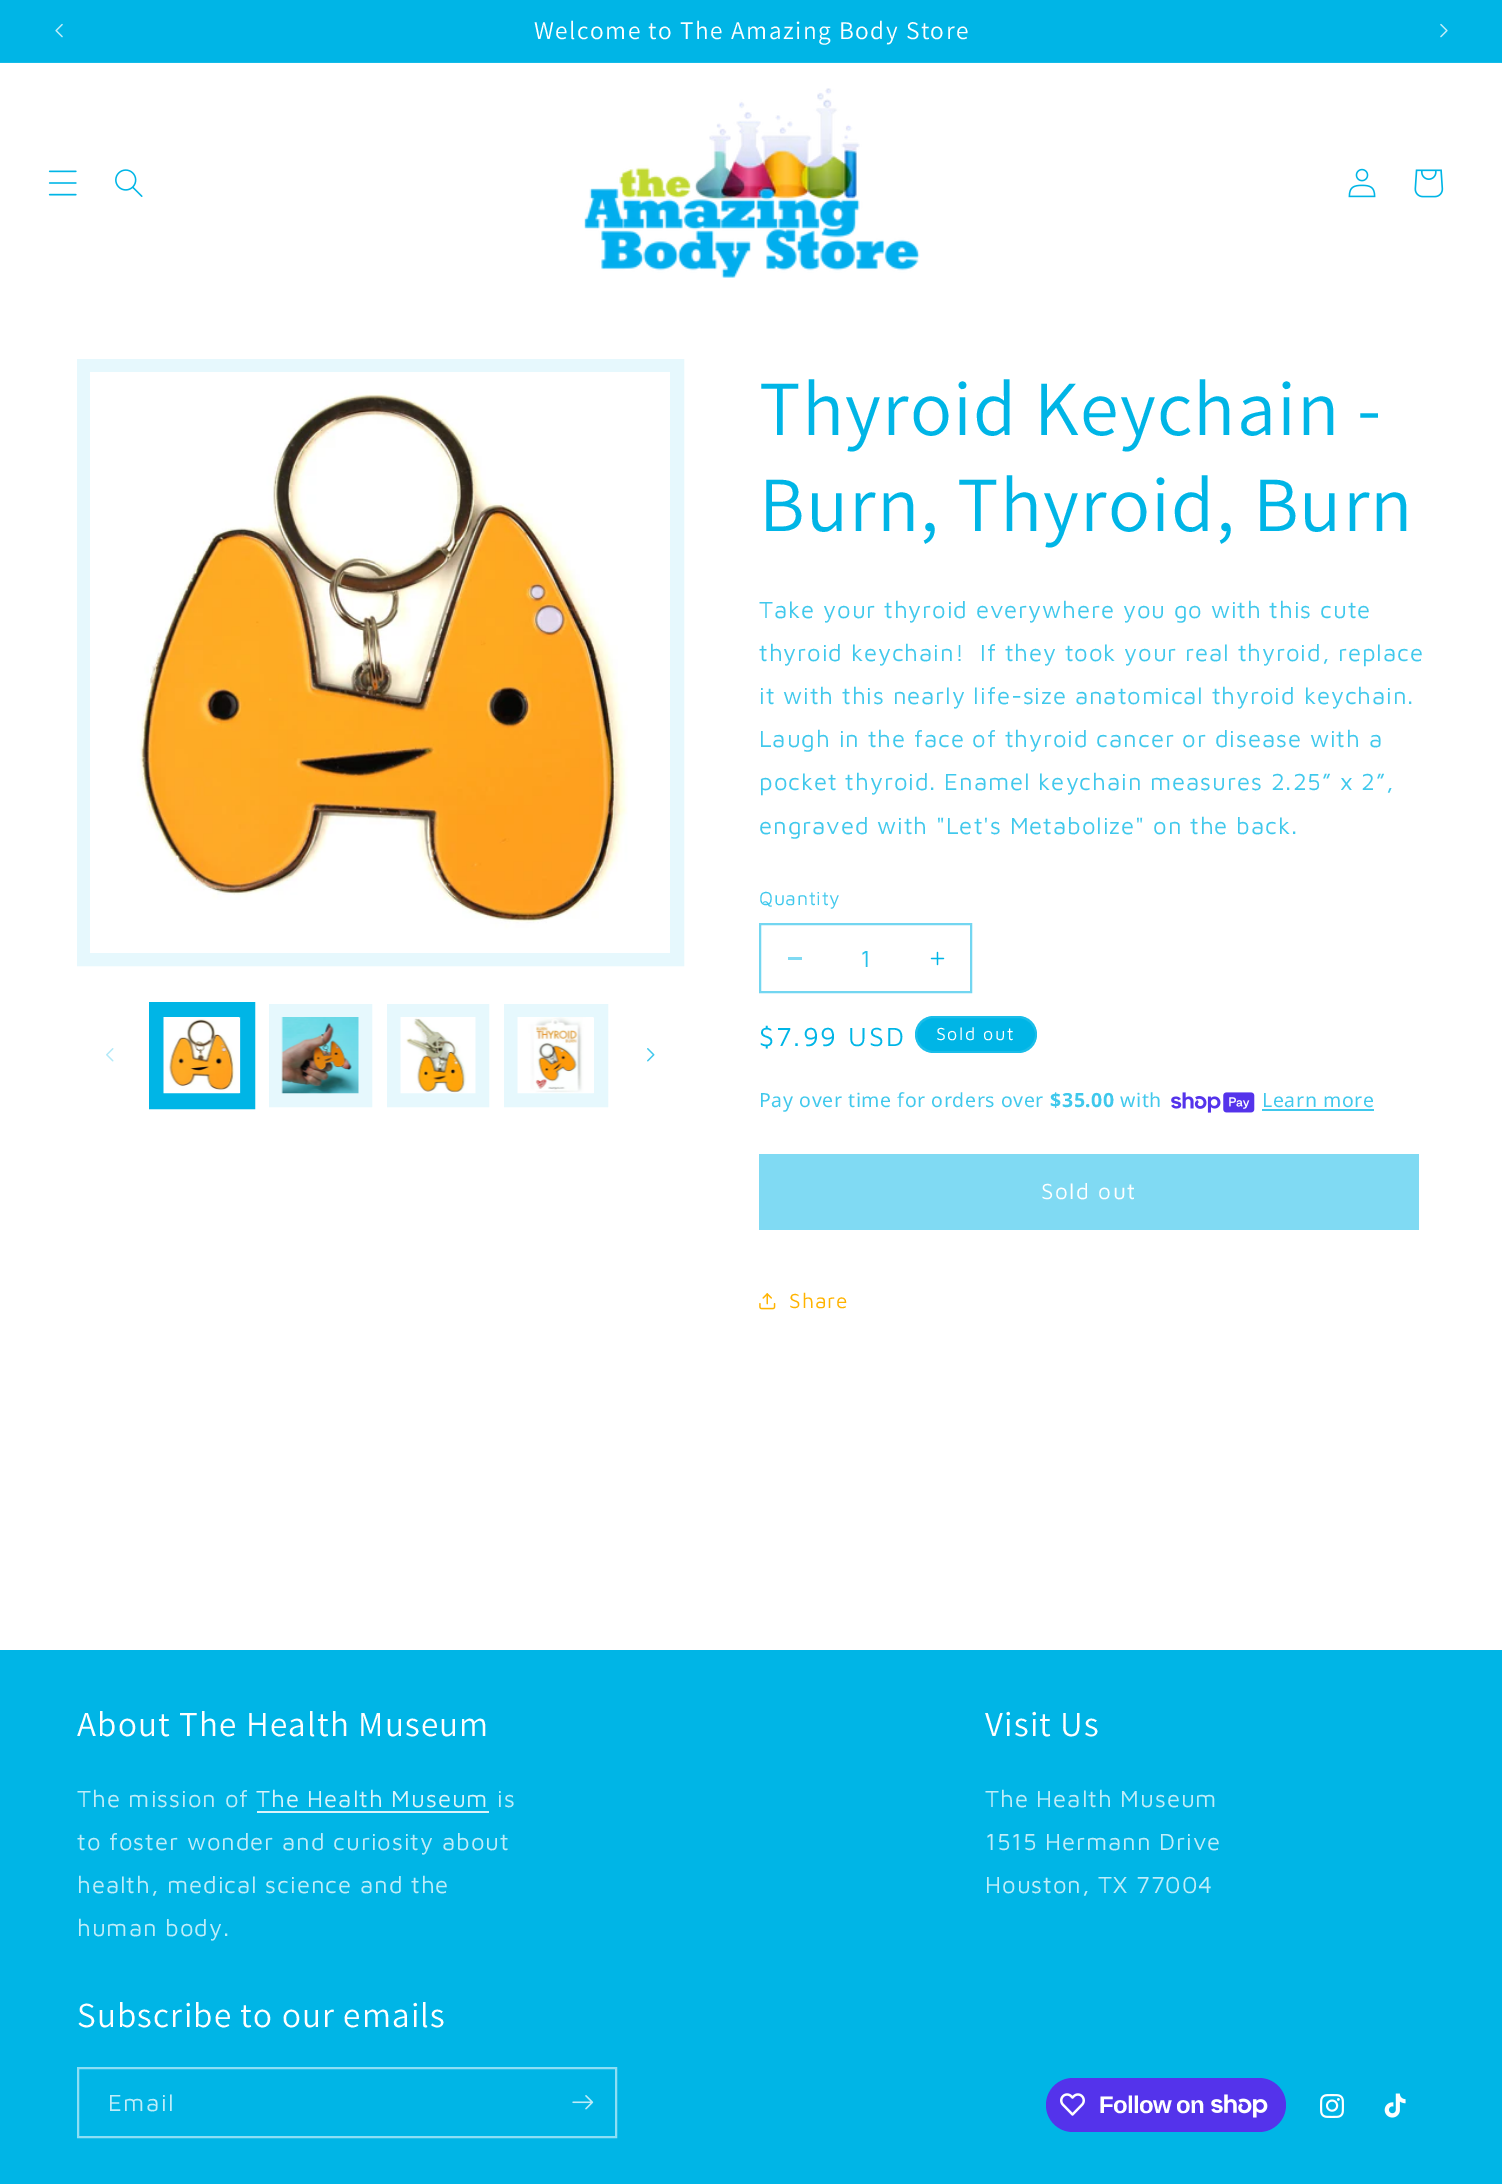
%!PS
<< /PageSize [1502 2184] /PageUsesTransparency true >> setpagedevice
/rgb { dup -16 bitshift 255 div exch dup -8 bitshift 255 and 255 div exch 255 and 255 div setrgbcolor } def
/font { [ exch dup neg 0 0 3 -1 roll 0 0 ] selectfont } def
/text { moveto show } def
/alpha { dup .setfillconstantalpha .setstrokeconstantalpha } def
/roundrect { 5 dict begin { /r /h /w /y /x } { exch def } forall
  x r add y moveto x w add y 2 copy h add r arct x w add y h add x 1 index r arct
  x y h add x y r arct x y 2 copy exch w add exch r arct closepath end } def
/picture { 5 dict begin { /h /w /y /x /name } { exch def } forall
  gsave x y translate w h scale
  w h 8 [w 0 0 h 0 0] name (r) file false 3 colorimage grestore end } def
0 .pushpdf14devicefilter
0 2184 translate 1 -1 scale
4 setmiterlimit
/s1 { /MavenPro-Regular 24 font 16#26C0EA rgb } def
16#FFFFFF rgb
0 0 1502 2184 rectfill
16#00B5E6 rgb
0 0 1502 62 rectfill
16#14BBE8 rgb
0 62 1502 1 rectfill
(pic1.raw) 55 23 8 15 picture
/Assistant-Regular 25.4 font
16#FFFFFF rgb
534 39 moveto 1.5 0 (Welcome to The Amazing Body Store) ashow
(pic2.raw) 1440 23 8 15 picture
(pic3.raw) 48 170 29 26 picture
(pic4.raw) 115 169 28 28 picture
(pic5.raw) 584 88 336 190 picture
(pic6.raw) 1348 168 28 30 picture
(pic7.raw) 1414 169 30 29 picture
16#E6F8FD rgb
14 setlinewidth
84 366 593 593 rectstroke
(pic8.raw) 90 372 580 581 picture
(pic9.raw) 106 1048 8 14 picture
16#00B5E6 rgb
2 setlinewidth
150 1003 104 105 rectstroke
14 setlinewidth
157 1011 90 89 rectstroke
(pic10.raw) 163 1017 78 77 picture
16#E6F8FD rgb
276 1011 89 89 rectstroke
(pic11.raw) 281 1017 78 77 picture
394 1011 88 89 rectstroke
(pic12.raw) 400 1017 76 77 picture
511 1011 90 89 rectstroke
(pic13.raw) 517 1017 77 77 picture
(pic14.raw) 647 1048 8 14 picture
/Assistant-Regular 78 font
16#00B5E6 rgb
759 435 moveto 1.2 0 (Thyroid Keychain -) ashow
759 531 moveto 1.2 0 (Burn, Thyroid, Burn) ashow
/MavenPro-Regular 24 font
16#40C8EC rgb
759 618 moveto 0.9 0 (Take your thyroid everywhere you go with this cute) ashow
759 661 moveto 0.9 0 (thyroid keychain!  If they took your real thyroid, replace) ashow
759 704 moveto 0.9 0 (it with this nearly life-size anatomical thyroid keychain.) ashow
759 747 moveto 0.9 0 (Laugh in the face of thyroid cancer or disease with a) ashow
759 790 moveto 0.9 0 (pocket thyroid. Enamel keychain measures 2.25” x 2”,) ashow
759 834 moveto 0.9 0 (engraved with "Let's Metabolize" on the back.) ashow
/MavenPro-Regular 19.5 font
759 905 moveto 0.6 0 (Quantity) ashow
16#80DAF3 rgb
788 957 14 3 rectfill
(pic15.raw) 930 951 15 15 picture
16#73D6F1 rgb
2 setlinewidth
760 924 211 68 rectstroke
s1
(1) 860 967 text
/MavenPro-Regular 27 font
16#00B5E6 rgb
759 1046 moveto 2 0 ($7.99 USD) ashow
915 1016 122 37 18.5 roundrect fill
0.1 alpha
16#FFFFFF rgb
916 1017 120 35 17.5 roundrect stroke
/MavenPro-Regular 18 font
1 alpha
936 1040 moveto 1.5 0 (Sold out) ashow
/NotoSans-Regular 19.5 font
16#40C8EC rgb
759 1107 moveto 0.6 0 (Pay over time for orders over) ashow
/NotoSans-Bold 19.5 font
1050 1107 moveto 0.6 0 ($35.00) ashow
/NotoSans-Regular 19.5 font
1120 1107 moveto 0.6 0 (with) ashow
(pic16.raw) 1171 1092 84 21 picture
1262 1107 moveto 0.6 0 (Learn more) ashow
1262 1109 112 2 rectfill
16#80DAF3 rgb
759 1154 660 76 rectfill
/MavenPro-Regular 22.5 font
16#FFFFFF rgb
1041 1199 moveto 1.5 0 (Sold out) ashow
(pic17.raw) 759 1293 17 17 picture
/MavenPro-Regular 21 font
16#FFB300 rgb
789 1308 moveto 0.9 0 (Share) ashow
16#00B5E6 rgb
0 1650 1502 534 rectfill
/Assistant-Regular 35.1 font
16#FFFFFF rgb
77 1736 moveto 1.2 0 (About The Health Museum) ashow
/MavenPro-Regular 24 font
16#BFEDF9 rgb
77 1807 moveto 0.9 0 (The mission of) ashow
16#D9F4FB rgb
256 1807 moveto 0.9 0 (The Health Museum) ashow
257 1811 232 2 rectfill
16#BFEDF9 rgb
497 1807 moveto 0.9 0 (is) ashow
77 1850 moveto 0.9 0 (to foster wonder and curiosity about) ashow
77 1893 moveto 0.9 0 (health, medical science and the) ashow
77 1936 moveto 0.9 0 (human body.) ashow
/Assistant-Regular 35.1 font
16#FFFFFF rgb
985 1736 moveto 1.2 0 (Visit Us) ashow
/MavenPro-Regular 24 font
16#BFEDF9 rgb
985 1807 moveto 0.9 0 (The Health Museum) ashow
985 1850 moveto 0.9 0 (1515 Hermann Drive) ashow
985 1893 moveto 0.9 0 (Houston, TX 77004) ashow
/Assistant-Regular 35.1 font
16#FFFFFF rgb
77 2027 moveto 1.2 0 (Subscribe to our emails) ashow
16#8CDEF4 rgb
78 2068 538 69 rectstroke
/MavenPro-Regular 24 font
16#BFEDF9 rgb
108 2111 moveto 1.5 0 (Email) ashow
(pic18.raw) 572 2095 22 15 picture
16#5433EB rgb
1046 2078 240 54 27 roundrect fill
(pic19.raw) 1060 2093 25 23 picture
/LiberationSans-Bold 24 font
16#FFFFFF rgb
1099 2113 moveto -0.75 0 (Follow on) ashow
(pic20.raw) 1211 2094 57 24 picture
(pic21.raw) 1320 2094 24 24 picture
(pic22.raw) 1384 2093 22 25 picture
.poppdf14devicefilter showpage
